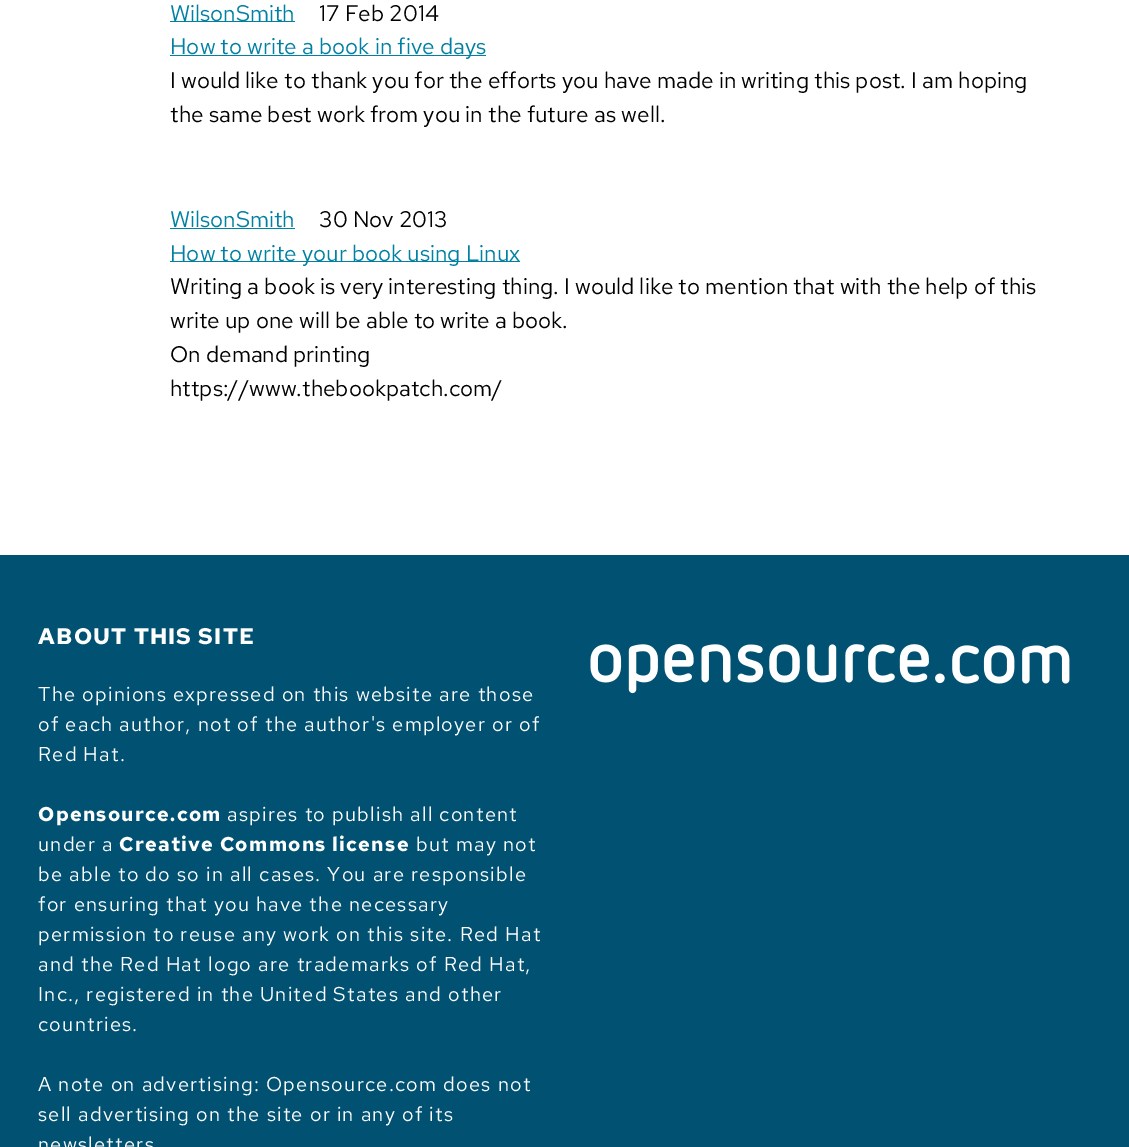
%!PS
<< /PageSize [1129 1147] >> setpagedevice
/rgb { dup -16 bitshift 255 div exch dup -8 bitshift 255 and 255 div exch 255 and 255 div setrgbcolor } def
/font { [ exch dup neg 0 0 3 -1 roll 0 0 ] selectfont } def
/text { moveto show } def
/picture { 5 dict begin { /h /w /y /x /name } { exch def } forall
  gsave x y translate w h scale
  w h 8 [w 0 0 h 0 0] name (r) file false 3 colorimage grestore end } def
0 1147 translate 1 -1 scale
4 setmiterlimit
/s1 { /RedHatText-Regular 22.5 font 16#0080A3 rgb } def
/s2 { /RedHatText-Regular 22.5 font 16#000000 rgb } def
16#FFFFFF rgb
0 0 1129 1147 rectfill
16#0080A3 rgb
170 21 125 1 rectfill
s1
(WilsonSmith) 170 21 text
s2
(17 Feb 2014) 319 21 text
16#0080A3 rgb
170 55 316 1 rectfill
(How to write a book in five days) 170 54 text
s2
(I would like to thank you for the efforts you have made in writing this post. I am hoping) 170 88 text
(the same best work from you in the future as well.) 170 122 text
s1
(WilsonSmith) 170 227 text
170 228 125 1 rectfill
s2
(30 Nov 2013) 319 227 text
16#0080A3 rgb
170 261 350 1 rectfill
(How to write your book using Linux) 170 261 text
s2
(Writing a book is very interesting thing. I would like to mention that with the help of this) 170 294 text
(write up one will be able to write a book.) 170 328 text
(On demand printing) 170 362 text
(https://www.thebookpatch.com/) 170 396 text
16#005172 rgb
0 555 1129 592 rectfill
/RedHatText-Bold 22.5 font
16#FFFFFF rgb
38 644 moveto 1.25 0 (ABOUT THIS SITE) ashow
/RedHatText-Regular 20 font
38 701 moveto 1.25 0 (The opinions expressed on this website are those) ashow
38 731 moveto 1.25 0 (of each author, not of the author's employer or of) ashow
38 761 moveto 1.25 0 (Red Hat.) ashow
/RedHatText-Bold 20 font
38 821 moveto 1.25 0 (Opensource.com) ashow
/RedHatText-Regular 20 font
227 821 moveto 1.25 0 (aspires to publish all content) ashow
38 851 moveto 1.25 0 (under a) ashow
/RedHatText-Bold 20 font
119 851 moveto 1.25 0 (Creative Commons license) ashow
/RedHatText-Regular 20 font
416 851 moveto 1.25 0 (but may not) ashow
38 881 moveto 1.25 0 (be able to do so in all cases. You are responsible) ashow
38 911 moveto 1.25 0 (for ensuring that you have the necessary) ashow
38 941 moveto 1.25 0 (permission to reuse any work on this site. Red Hat) ashow
38 971 moveto 1.25 0 (and the Red Hat logo are trademarks of Red Hat,) ashow
38 1001 moveto 1.25 0 (Inc., registered in the United States and other) ashow
38 1031 moveto 1.25 0 (countries.) ashow
38 1091 moveto 1.25 0 (A note on advertising: Opensource.com does not) ashow
38 1121 moveto 1.25 0 (sell advertising on the site or in any of its) ashow
38 1151 moveto 1.25 0 (newsletters) ashow
(pic1.raw) 590 644 480 50 picture
showpage
